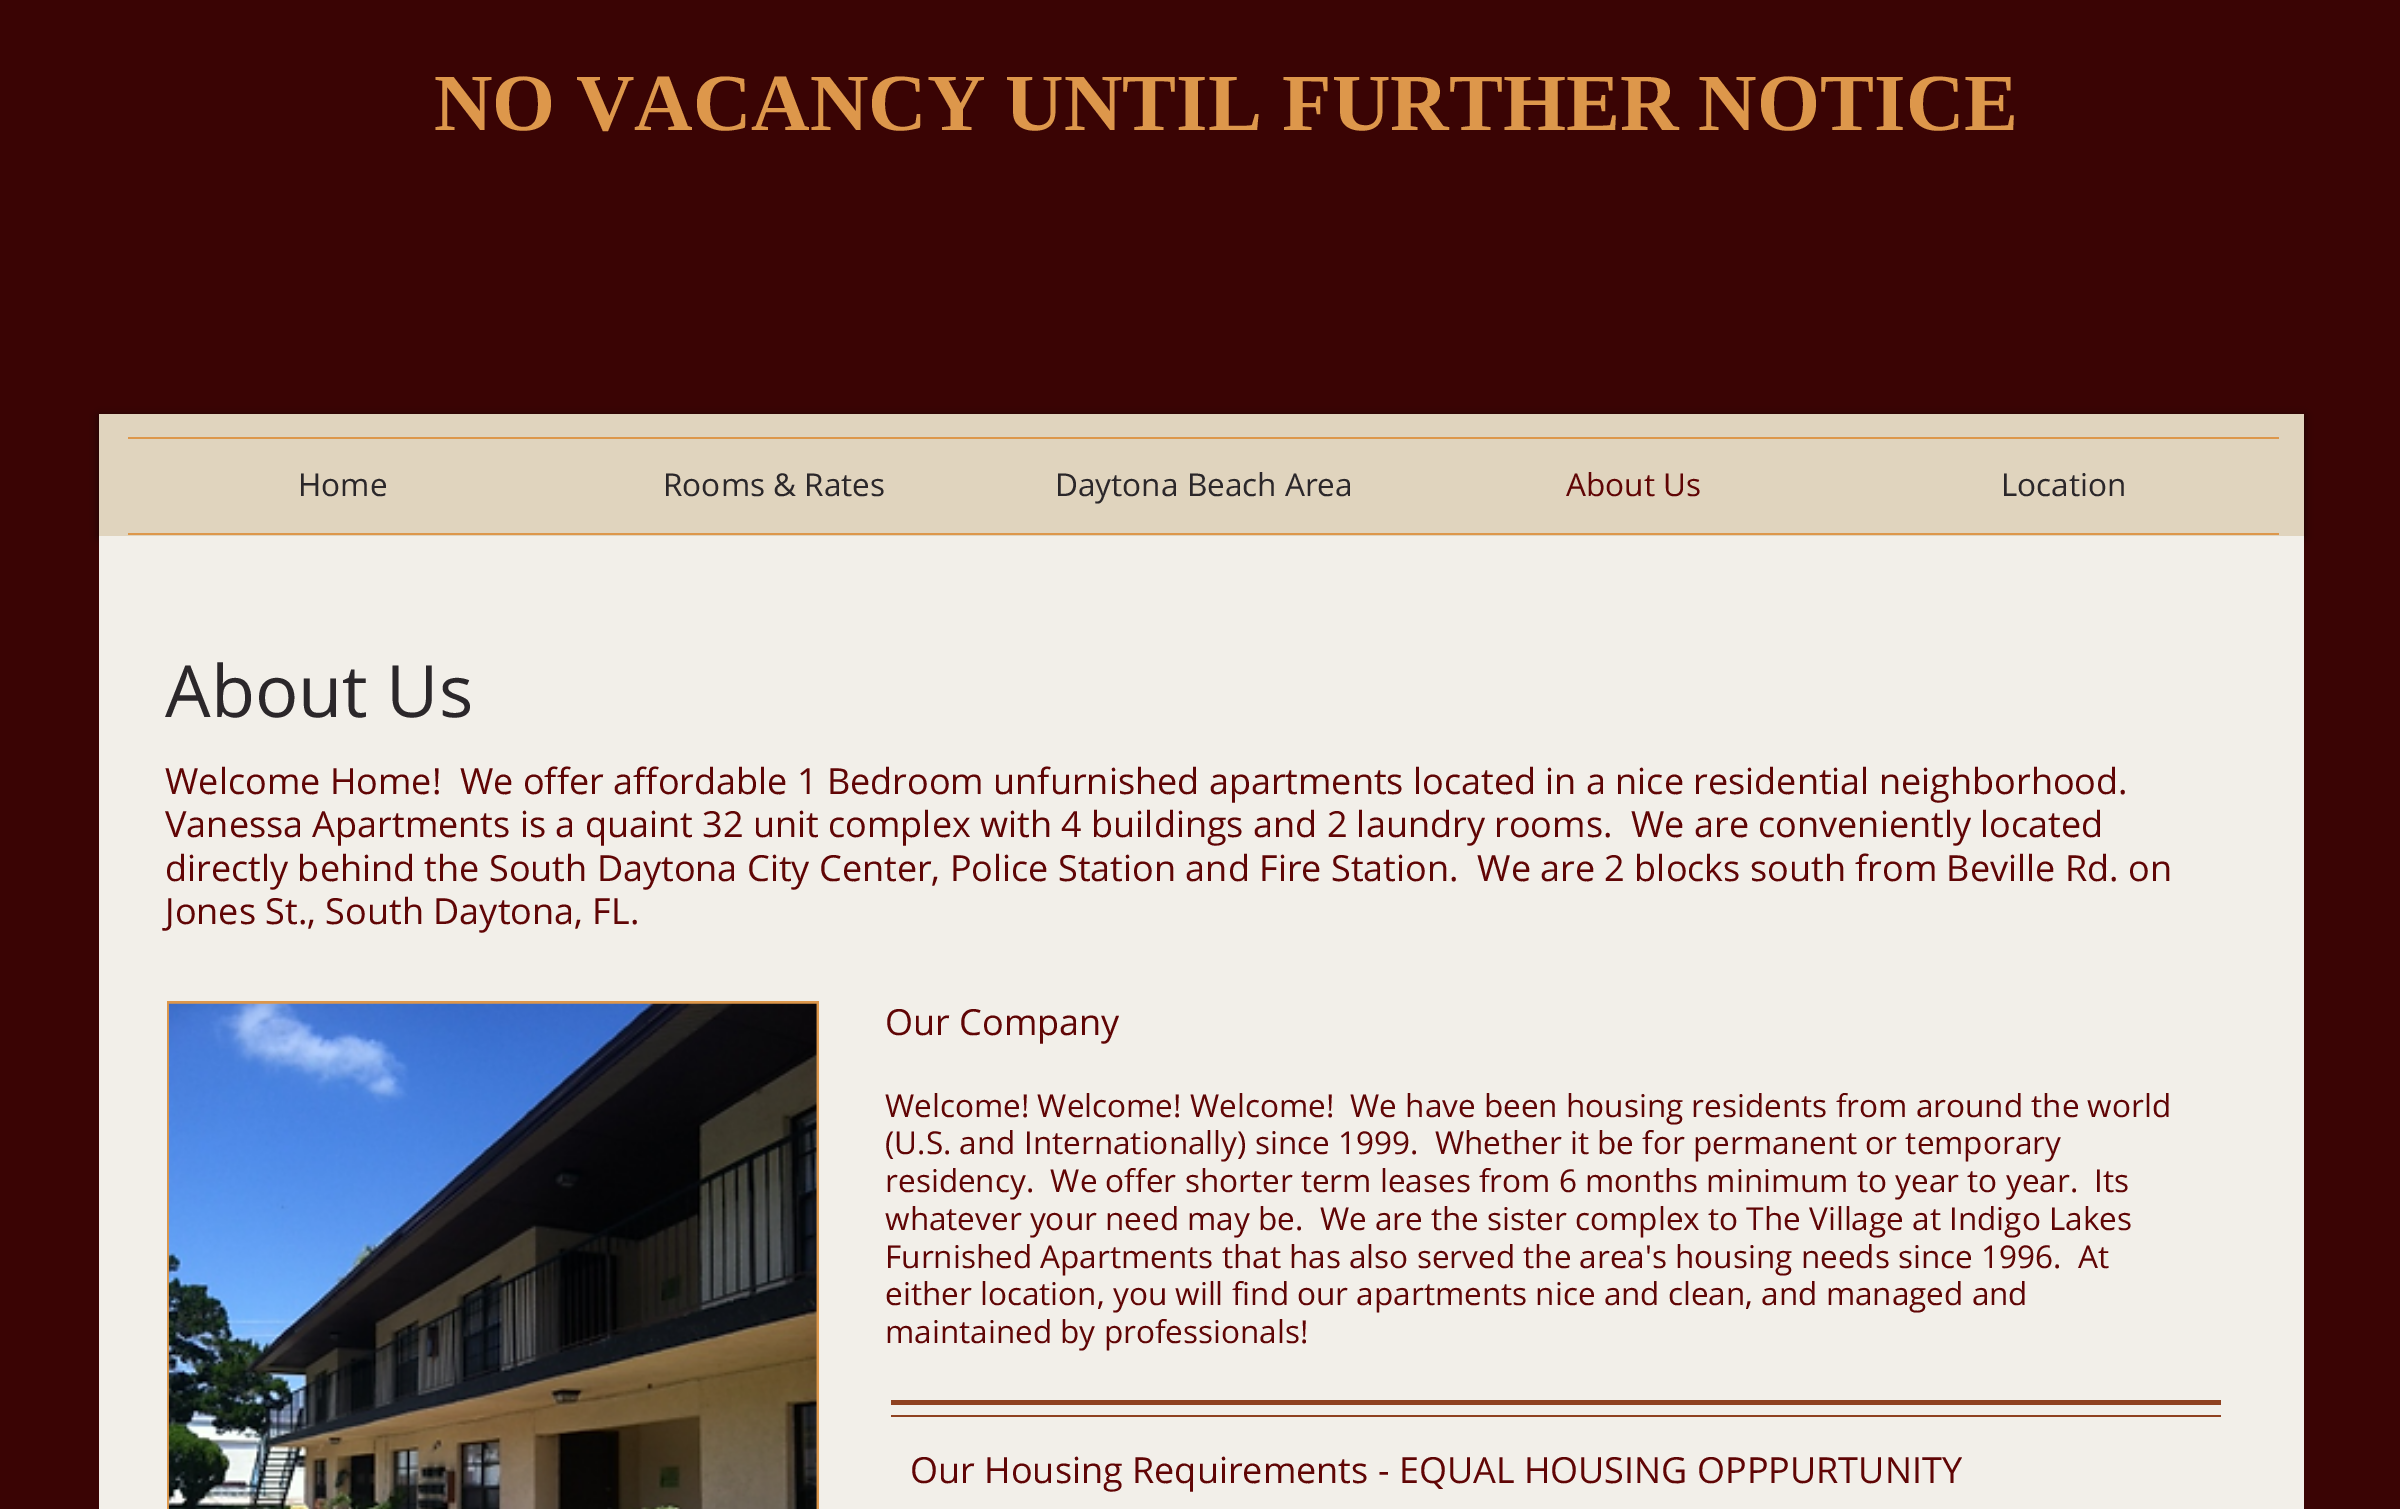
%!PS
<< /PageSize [2400 1509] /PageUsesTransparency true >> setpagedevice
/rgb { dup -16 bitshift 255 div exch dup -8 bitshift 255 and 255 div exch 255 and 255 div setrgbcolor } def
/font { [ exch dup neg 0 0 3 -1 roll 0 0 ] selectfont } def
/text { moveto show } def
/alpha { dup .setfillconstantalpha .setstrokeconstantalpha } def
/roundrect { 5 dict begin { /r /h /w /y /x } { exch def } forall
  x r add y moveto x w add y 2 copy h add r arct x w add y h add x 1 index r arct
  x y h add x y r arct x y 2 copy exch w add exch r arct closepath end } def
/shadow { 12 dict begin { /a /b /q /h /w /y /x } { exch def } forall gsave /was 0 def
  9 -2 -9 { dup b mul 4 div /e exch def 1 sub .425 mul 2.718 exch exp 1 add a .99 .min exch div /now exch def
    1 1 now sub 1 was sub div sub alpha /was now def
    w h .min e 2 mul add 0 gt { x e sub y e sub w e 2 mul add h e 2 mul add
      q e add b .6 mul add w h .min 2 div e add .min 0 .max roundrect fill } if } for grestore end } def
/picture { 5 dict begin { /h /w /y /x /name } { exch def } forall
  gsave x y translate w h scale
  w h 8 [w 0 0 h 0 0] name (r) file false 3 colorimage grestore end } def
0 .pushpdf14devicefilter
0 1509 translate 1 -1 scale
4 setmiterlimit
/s1 { /LiberationSerif-Bold 81 font 16#DD974B rgb } def
/s2 { /OpenSans-Regular 31.5 font 16#2B272A rgb } def
/s3 { /OpenSans-Regular 31.5 font 16#600505 rgb } def
/s4 { /OpenSans-Regular 72 font 16#2B272A rgb } def
/s5 { /OpenSans-Regular 36 font 16#600505 rgb } def
16#3A0404 rgb
0 0 2400 1509 rectfill
s1
(NO VACANCY UNTIL FURTHER NOTICE) 434 130 text
16#000000 rgb
99 416 2205 122 0 4.5 0.6 shadow
16#E0D4BE rgb
99 414 2205 122 rectfill
16#DD974B rgb
128 437 2151 2 rectfill
128 533 2151 2 rectfill
s2
(Home) 298 496 text
(Rooms & Rates) 663 496 text
(Daytona Beach Area) 1055 496 text
s3
(About Us) 1566 496 text
s2
(Location) 2001 496 text
16#F2EFE9 rgb
99 536 2205 973 rectfill
s4
(About Us) 165 717 text
s5
(Welcome Home!  We offer affordable 1 Bedroom unfurnished apartments located in a nice residential neighborhood.) 165 794 text
(Vanessa Apartments is a quaint 32 unit complex with 4 buildings and 2 laundry rooms.  We are conveniently located) 165 837 text
(directly behind the South Daytona City Center, Police Station and Fire Station.  We are 2 blocks south from Beville Rd. on) 165 881 text
(Jones St., South Daytona, FL.) 165 924 text
16#DD974B rgb
167 1001 652 508 rectfill
(pic1.raw) 168 1003 649 506 picture
s5
(Our Company) 885 1035 text
s3
(Welcome! Welcome! Welcome!  We have been housing residents from around the world) 885 1117 text
(\(U.S. and Internationally\) since 1999.  Whether it be for permanent or temporary) 885 1154 text
(residency.  We offer shorter term leases from 6 months minimum to year to year.  Its) 885 1192 text
(whatever your need may be.  We are the sister complex to The Village at Indigo Lakes) 885 1230 text
(Furnished Apartments that has also served the area's housing needs since 1996.  At) 885 1268 text
(either location, you will find our apartments nice and clean, and managed and) 885 1305 text
(maintained by professionals!) 885 1343 text
16#8F4120 rgb
891 1400 1330 5 rectfill
891 1415 1330 2 rectfill
s5
(Our Housing Requirements - EQUAL HOUSING OPPPURTUNITY) 910 1483 text
.poppdf14devicefilter showpage
